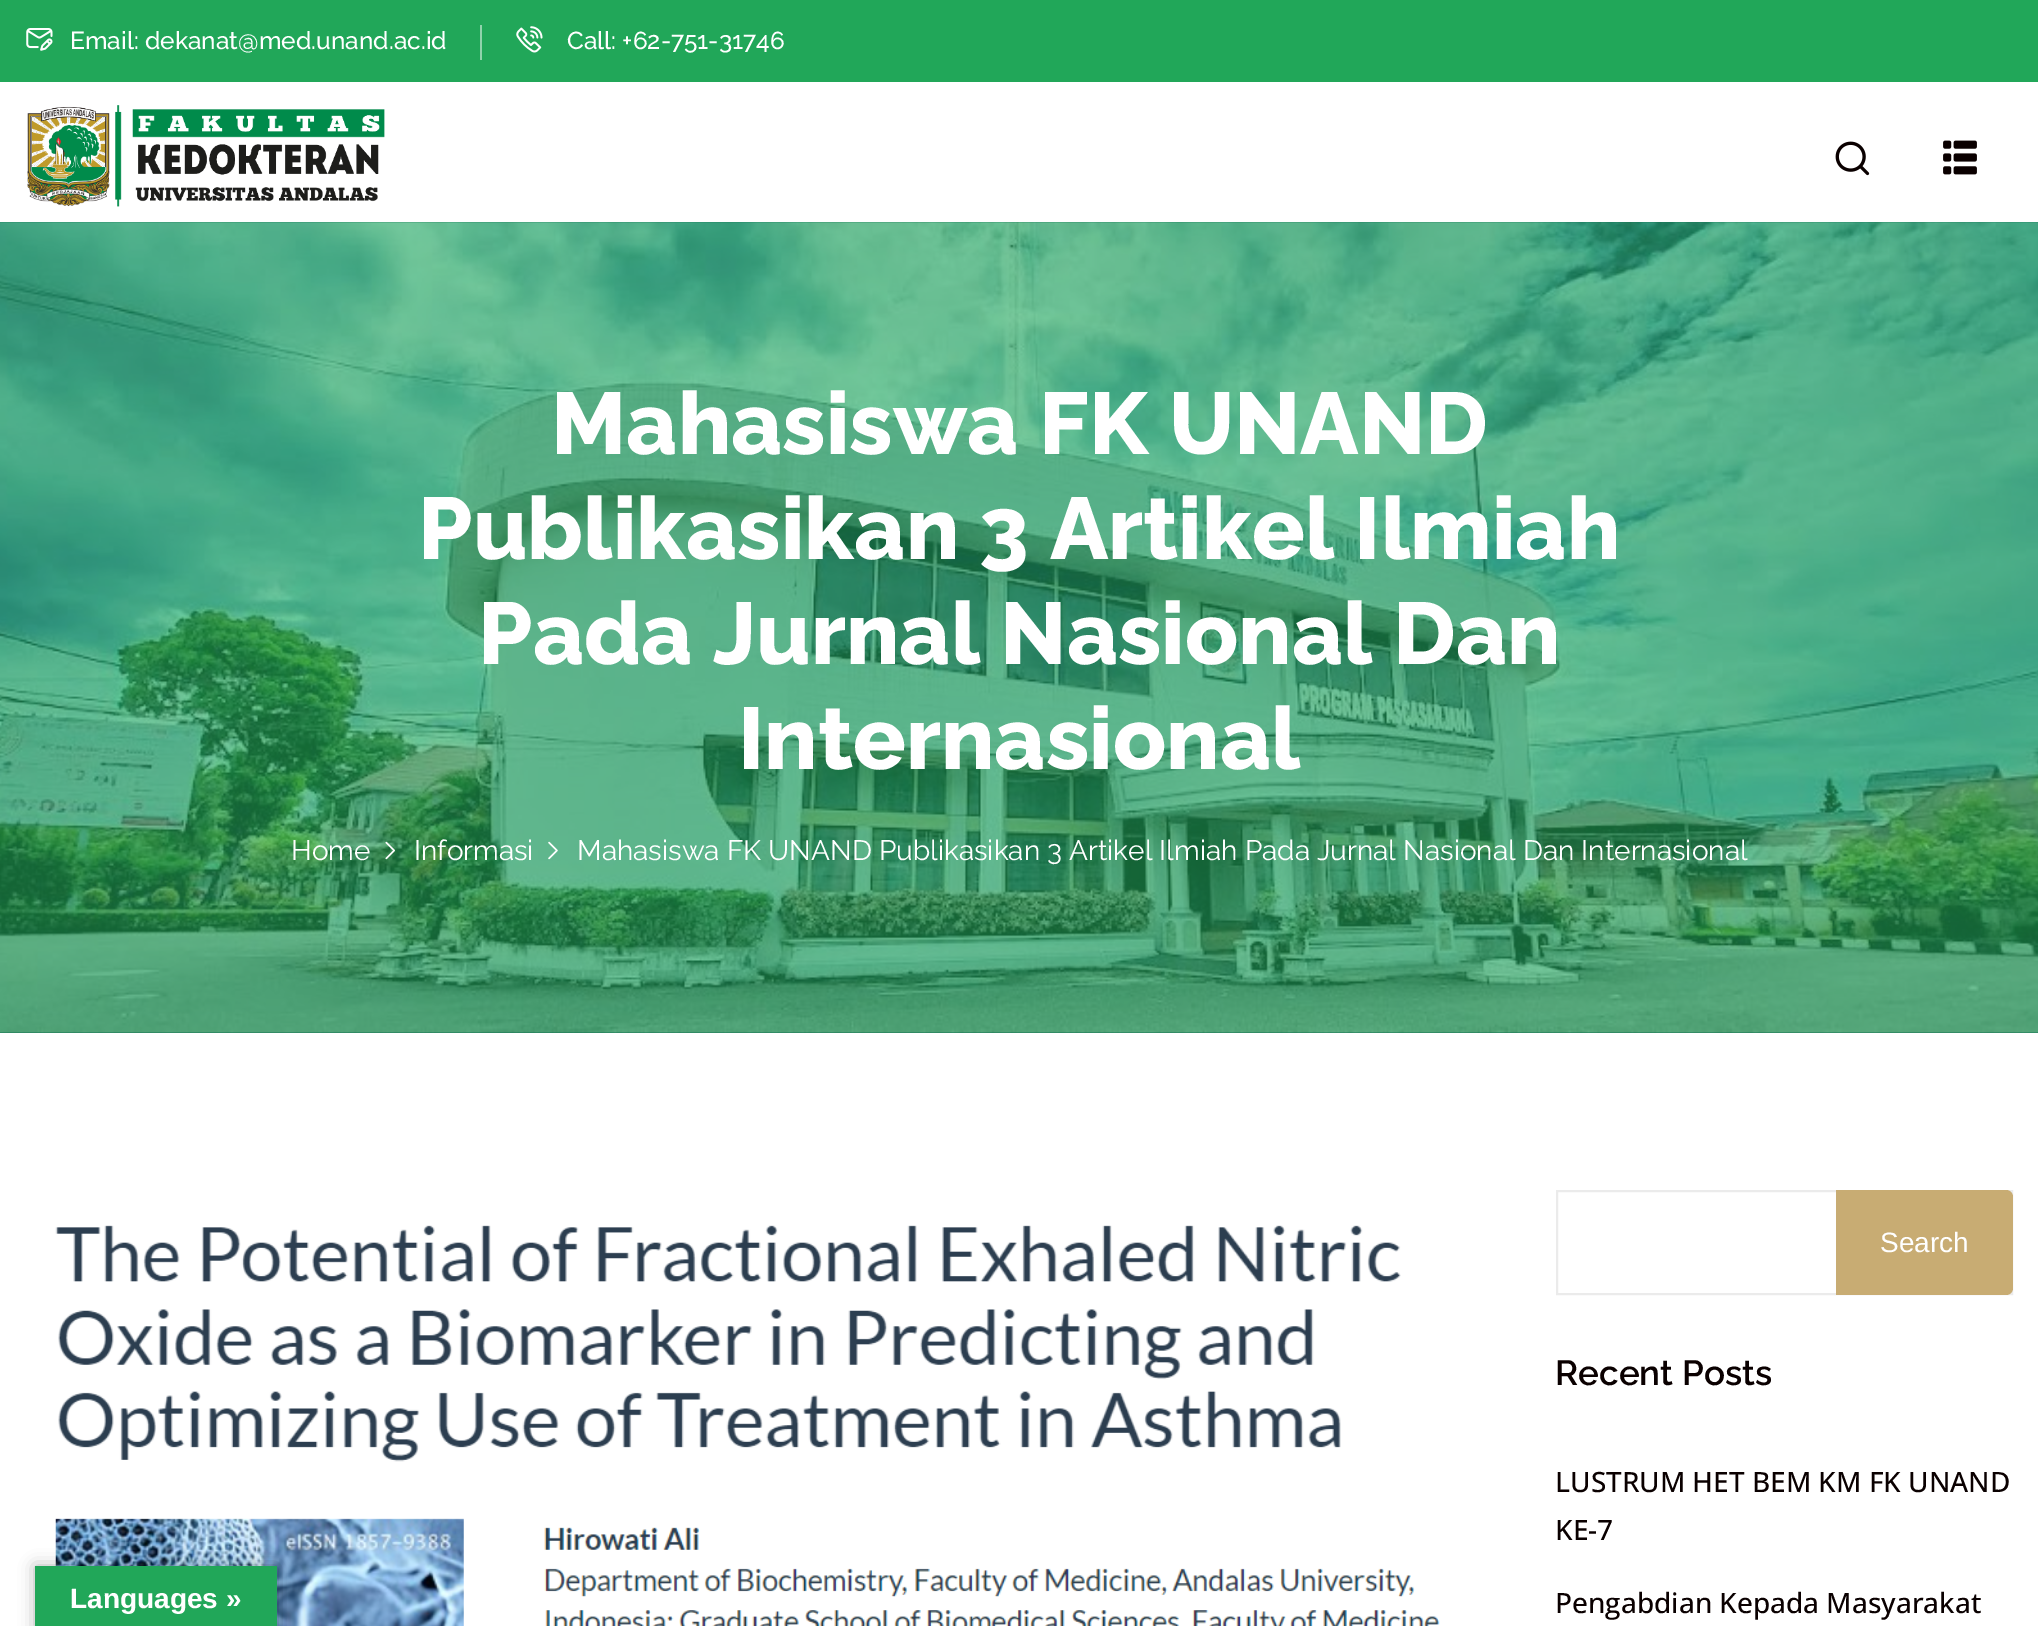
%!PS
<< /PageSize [2038 1626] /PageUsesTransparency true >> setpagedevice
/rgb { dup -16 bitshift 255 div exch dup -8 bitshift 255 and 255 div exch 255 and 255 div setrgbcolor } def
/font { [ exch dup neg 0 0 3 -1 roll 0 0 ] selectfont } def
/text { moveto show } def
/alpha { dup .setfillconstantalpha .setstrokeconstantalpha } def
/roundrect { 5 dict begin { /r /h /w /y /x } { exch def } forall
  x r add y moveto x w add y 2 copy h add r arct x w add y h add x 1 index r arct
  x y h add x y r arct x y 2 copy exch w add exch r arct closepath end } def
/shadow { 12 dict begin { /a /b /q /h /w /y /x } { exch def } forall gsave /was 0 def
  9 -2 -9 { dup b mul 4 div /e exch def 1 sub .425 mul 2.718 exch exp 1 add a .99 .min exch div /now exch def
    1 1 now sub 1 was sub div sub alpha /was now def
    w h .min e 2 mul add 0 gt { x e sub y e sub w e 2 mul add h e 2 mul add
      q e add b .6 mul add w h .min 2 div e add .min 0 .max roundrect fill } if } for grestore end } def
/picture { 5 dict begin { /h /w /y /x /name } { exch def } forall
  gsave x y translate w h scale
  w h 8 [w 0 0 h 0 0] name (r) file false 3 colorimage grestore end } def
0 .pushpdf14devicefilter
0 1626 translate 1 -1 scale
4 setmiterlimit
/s1 { /Raleway-Medium 24.5 font 16#FFFFFF rgb } def
/s2 { /Raleway-ExtraBold 87.5 font 16#FFFFFF rgb } def
/s3 { /Raleway-Regular 28 font 16#FFFFFF rgb } def
/s4 { /LiberationSans-Regular 28 font 16#FFFFFF rgb } def
/s5 { /Raleway-SemiBold 35 font 16#0A0000 rgb } def
/s6 { /OpenSans-Medium 28 font 16#0A0000 rgb } def
/s7 { /LiberationSans-Bold 28 font 16#FFFFFF rgb } def
16#FFFFFF rgb
0 0 2038 1626 rectfill
16#21A759 rgb
0 0 2038 82 rectfill
(pic1.raw) 26 28 27 23 picture
s1
(Email: dekanat@med.unand.ac.id) 70 49 text
16#90D3AC rgb
480 25 2 35 rectfill
(pic2.raw) 516 26 27 27 picture
s1
(Call: +62-751-31746) 567 49 text
(pic3.raw) 27 105 358 102 picture
(pic4.raw) 1835 141 35 35 picture
(pic5.raw) 1943 140 34 35 picture
16#177554 rgb
0 222 2038 811 rectfill
(pic6.raw) 0 222 2038 811 picture
s2
(Mahasiswa FK UNAND) 551 454 text
(Publikasikan 3 Artikel Ilmiah) 418 559 text
(Pada Jurnal Nasional Dan) 478 664 text
(Internasional) 738 769 text
s3
(Home) 291 860 text
(pic7.raw) 385 841 10 19 picture
(Informasi) 414 860 text
(pic8.raw) 548 841 10 19 picture
(Mahasiswa FK UNAND Publikasikan 3 Artikel Ilmiah Pada Jurnal Nasional Dan Internasional) 577 860 text
(pic9.raw) 55 1225 1385 401 picture
16#EBEBEB rgb
2 setlinewidth
1557 1191 455 103 rectstroke
16#C8AC73 rgb
1836 1190 moveto 2006 1190 lineto 2010 1190 2013 1193 2013 1197 curveto 2013 1288 lineto 2013 1292 2010 1295 2006 1295 curveto 1836 1295 lineto closepath fill
s4
(Search) 1880 1252 text
s5
(Recent Posts) 1555 1385 text
s6
(LUSTRUM HET BEM KM FK UNAND) 1555 1492 text
(KE-7) 1555 1540 text
(Pengabdian Kepada Masyarakat) 1555 1613 text
16#000000 rgb
35 1566 242 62 0 8 0.3 shadow
16#21A759 rgb
35 1566 242 60 rectfill
s7
(Languages ») 70 1608 text
.poppdf14devicefilter showpage
